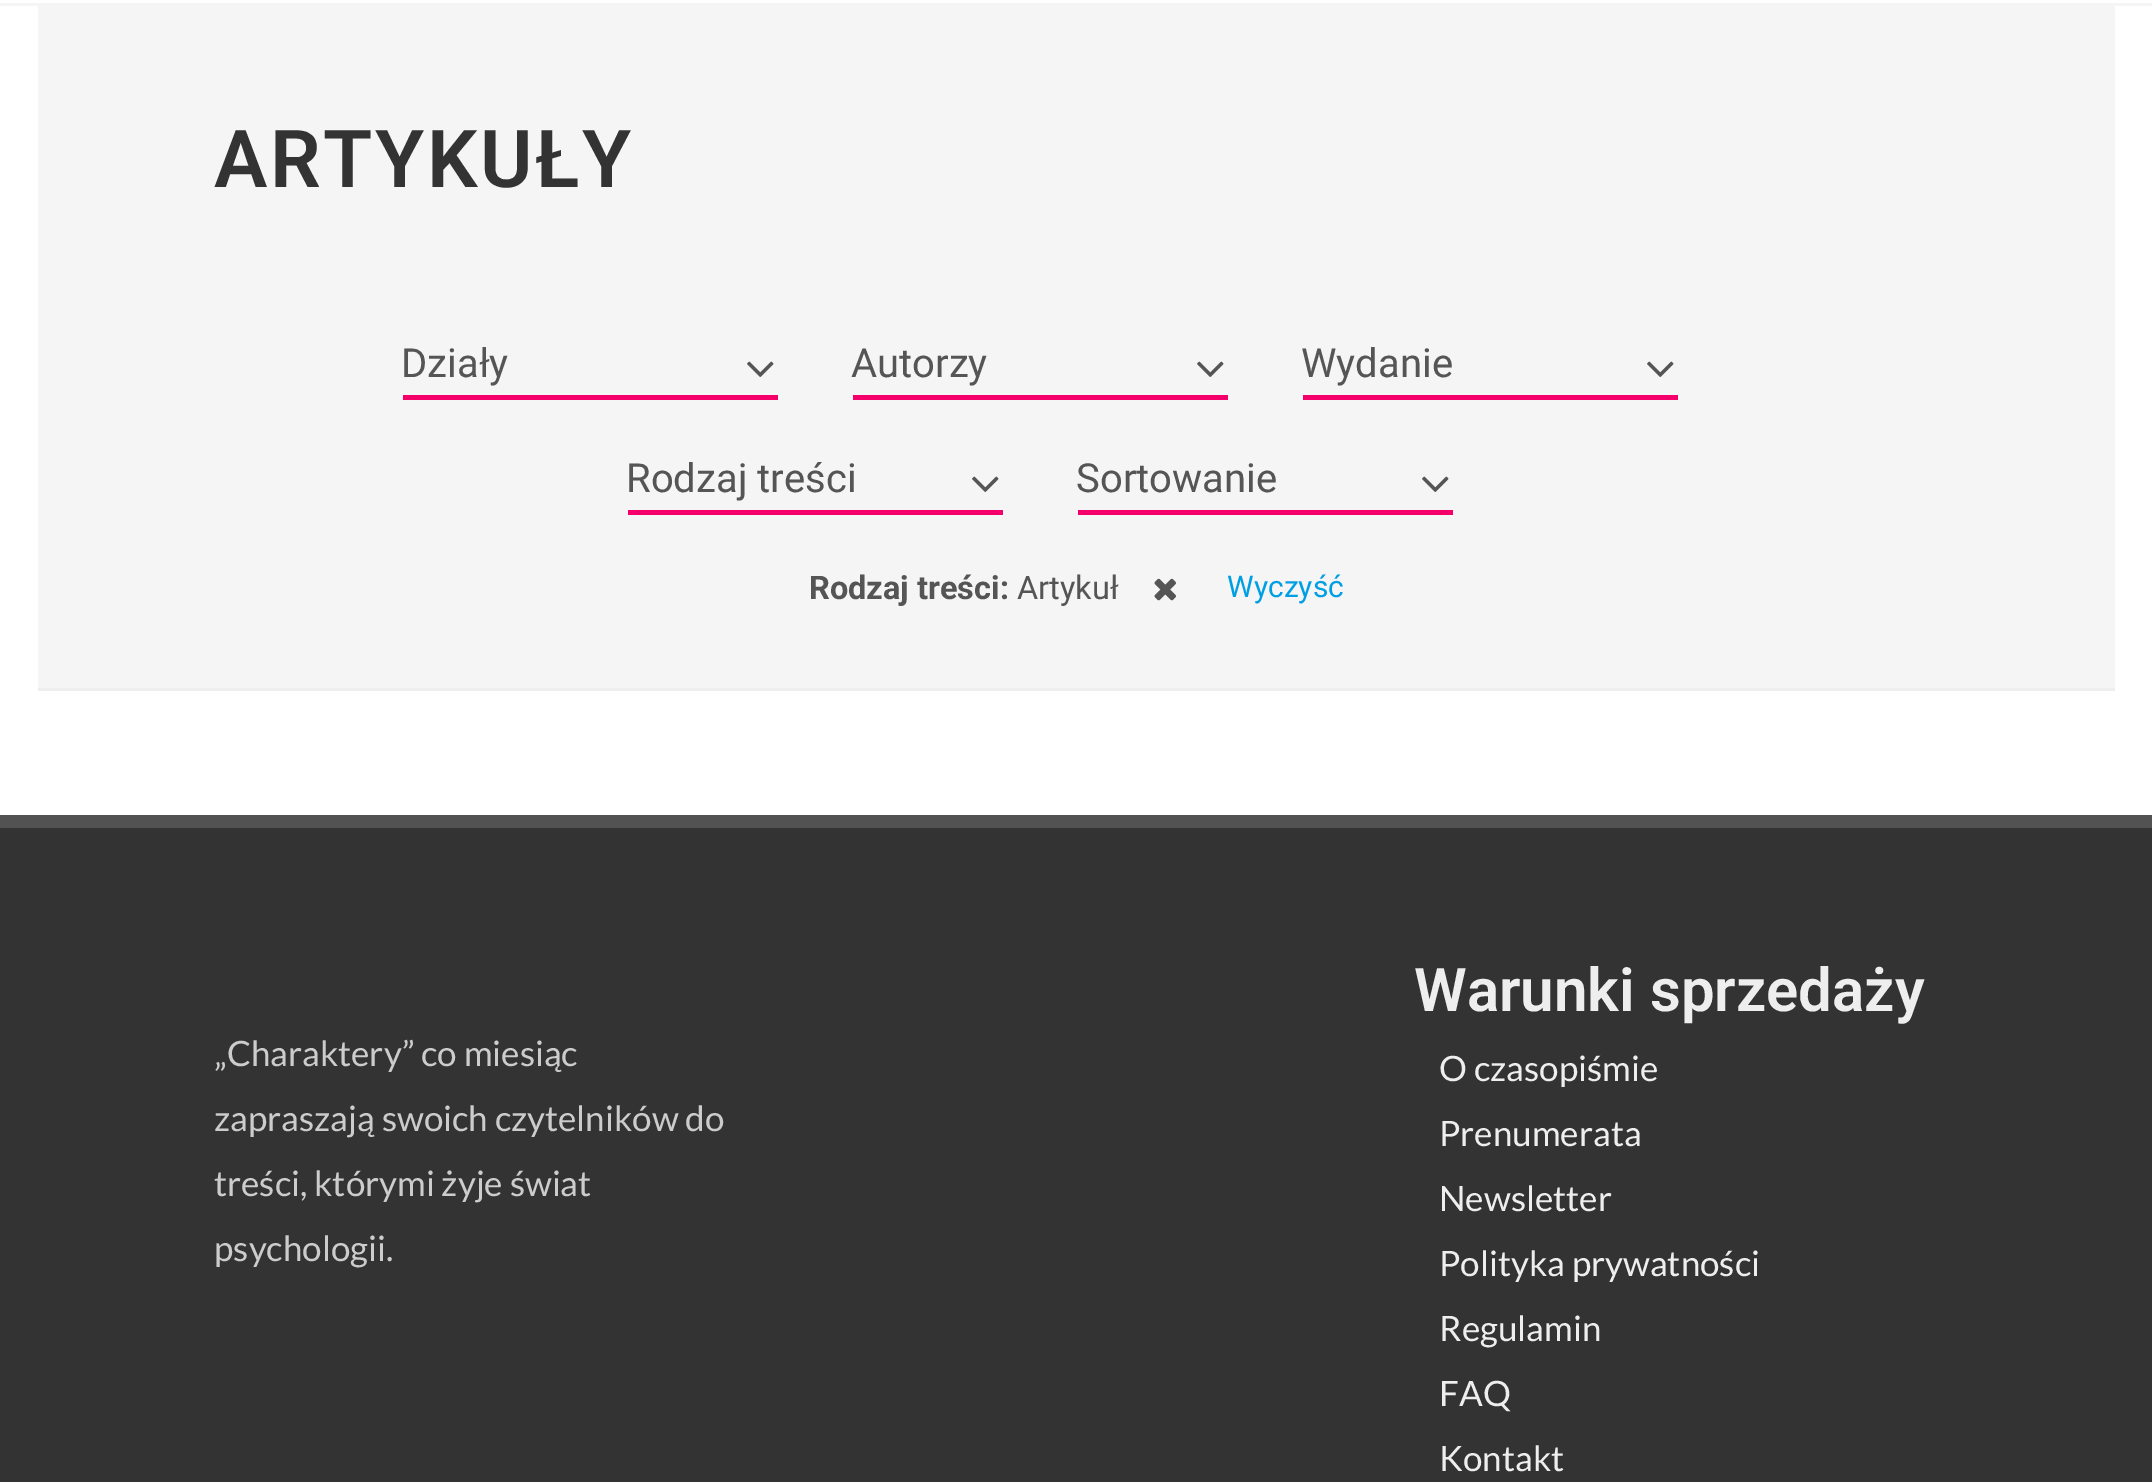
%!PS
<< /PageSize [2152 1482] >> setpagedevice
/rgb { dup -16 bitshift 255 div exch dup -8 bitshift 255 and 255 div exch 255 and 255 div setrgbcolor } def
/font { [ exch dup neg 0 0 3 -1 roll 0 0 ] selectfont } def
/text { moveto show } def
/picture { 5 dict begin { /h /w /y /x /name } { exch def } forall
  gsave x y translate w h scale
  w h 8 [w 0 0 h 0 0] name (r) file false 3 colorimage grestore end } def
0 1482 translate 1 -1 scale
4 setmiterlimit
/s1 { /Roboto-Regular 40 font 16#555555 rgb } def
/s2 { /Roboto-Bold 32.5 font 16#555555 rgb } def
/s3 { /Roboto-Regular 32.5 font 16#555555 rgb } def
/s4 { /Roboto-Regular 30 font 16#009FE3 rgb } def
/s5 { /Lato-Regular 35 font 16#CCCCCC rgb } def
/s6 { /Roboto-SemiBold 60 font 16#EEEEEE rgb } def
/s7 { /Lato-Regular 35 font 16#EEEEEE rgb } def
16#FFFFFF rgb
0 0 2152 1482 rectfill
16#F5F5F5 rgb
0 3 2152 3 rectfill
38 6 2077 682 rectfill
16#EEEEEE rgb
38 688 2077 3 rectfill
/Roboto-SemiBold 80 font
16#333333 rgb
214 187 moveto 2.5 0 (ARTYKUŁY) ashow
16#F5006A rgb
403 395 375 5 rectfill
s1
(Działy) 401 377 text
(pic1.raw) 747 361 27 16 picture
16#F5006A rgb
853 395 375 5 rectfill
s1
(Autorzy) 851 377 text
(pic1.raw) 1197 361 27 16 picture
16#F5006A rgb
1303 395 375 5 rectfill
s1
(Wydanie) 1301 377 text
(pic1.raw) 1647 361 27 16 picture
16#F5006A rgb
628 510 375 5 rectfill
s1
(Rodzaj treści) 626 492 text
(pic1.raw) 972 476 27 16 picture
16#F5006A rgb
1078 510 375 5 rectfill
s1
(Sortowanie) 1076 492 text
(pic1.raw) 1422 476 27 16 picture
s2
(Rodzaj treści:) 809 599 text
s3
(Artykuł) 1017 599 text
(pic2.raw) 1154 578 22 23 picture
s4
(Wyczyść) 1227 597 text
16#333333 rgb
0 828 2152 654 rectfill
16#525252 rgb
0 815 2152 13 rectfill
s5
(„Charaktery” co miesiąc) 214 1066 text
(zapraszają swoich czytelników do) 214 1131 text
(treści, którymi żyje świat) 214 1196 text
(psychologii.) 214 1261 text
s6
(Warunki sprzedaży) 1414 1011 text
s7
(O czasopiśmie) 1439 1081 text
(Prenumerata) 1439 1146 text
(Newsletter) 1439 1211 text
(Polityka prywatności) 1439 1276 text
(Regulamin) 1439 1341 text
(FAQ) 1439 1406 text
(Kontakt) 1439 1471 text
showpage
